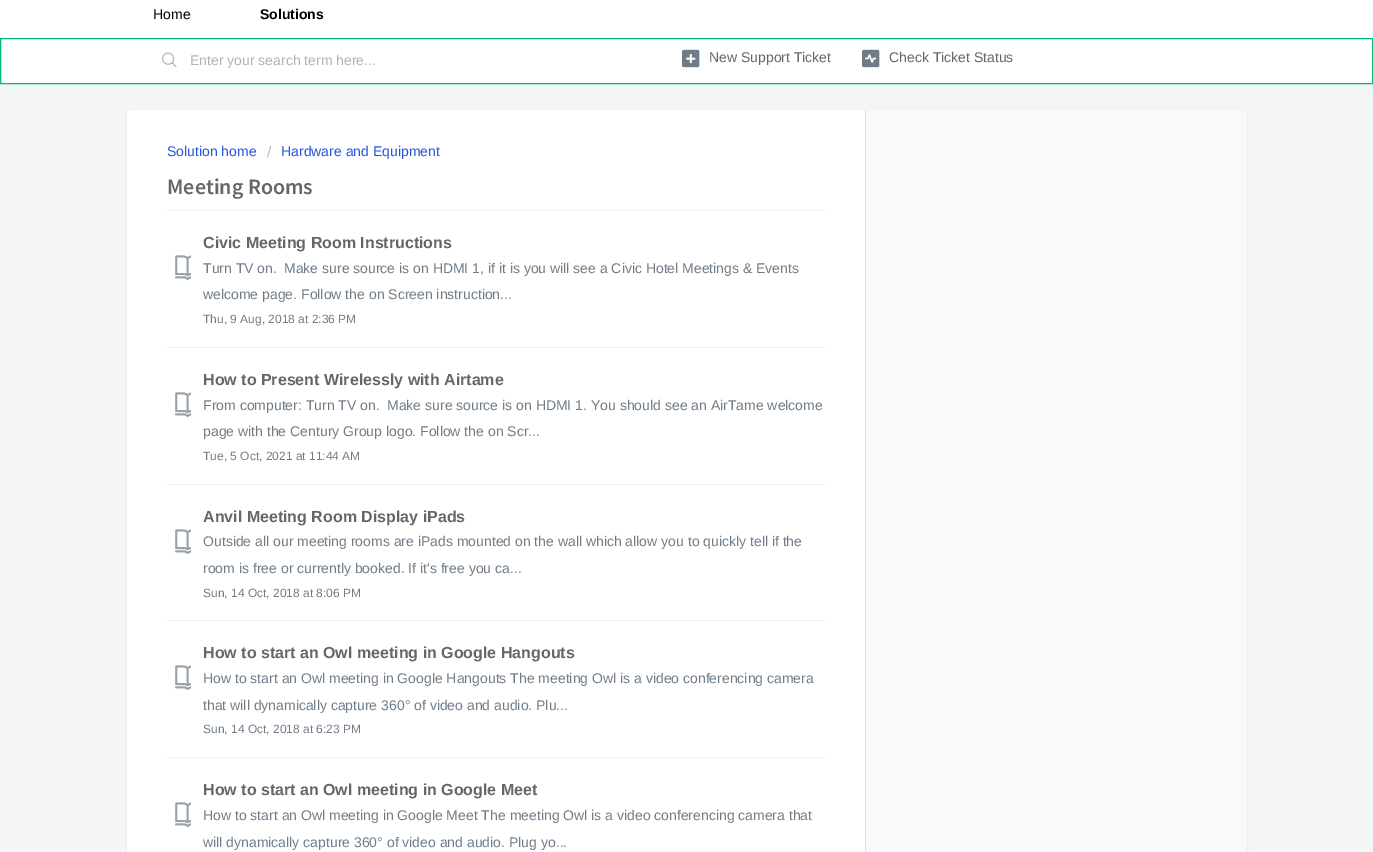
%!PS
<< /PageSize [1373 852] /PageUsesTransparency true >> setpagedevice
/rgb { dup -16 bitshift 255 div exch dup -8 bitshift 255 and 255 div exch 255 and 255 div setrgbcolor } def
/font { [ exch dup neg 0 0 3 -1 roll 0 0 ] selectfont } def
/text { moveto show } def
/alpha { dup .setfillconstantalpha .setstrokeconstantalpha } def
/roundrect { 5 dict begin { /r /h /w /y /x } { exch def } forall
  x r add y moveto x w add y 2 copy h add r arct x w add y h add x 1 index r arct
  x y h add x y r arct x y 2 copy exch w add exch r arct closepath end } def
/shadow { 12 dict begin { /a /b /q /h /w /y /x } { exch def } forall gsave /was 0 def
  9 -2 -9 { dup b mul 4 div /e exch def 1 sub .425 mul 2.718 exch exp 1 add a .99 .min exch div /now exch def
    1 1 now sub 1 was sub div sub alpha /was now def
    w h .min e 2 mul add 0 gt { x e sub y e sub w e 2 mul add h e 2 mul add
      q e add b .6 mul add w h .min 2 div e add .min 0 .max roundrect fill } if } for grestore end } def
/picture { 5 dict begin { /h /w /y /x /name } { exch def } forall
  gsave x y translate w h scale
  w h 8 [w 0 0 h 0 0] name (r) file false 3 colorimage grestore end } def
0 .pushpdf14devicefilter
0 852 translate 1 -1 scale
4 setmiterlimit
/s1 { /LiberationSans-Regular 14 font 16#000000 rgb } def
/s2 { /LiberationSans-Bold 14 font 16#000000 rgb } def
/s3 { /LiberationSans-Regular 14 font 16#B2B2B2 rgb } def
/s4 { /LiberationSans-Regular 14 font 16#666666 rgb } def
/s5 { /LiberationSans-Regular 14 font 16#2753D7 rgb } def
/s6 { /LiberationSans-Regular 16 font 16#BBBBBB rgb } def
/s7 { /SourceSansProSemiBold-SemiBold 22 font 16#666666 rgb } def
/s8 { /LiberationSans-Bold 16 font 16#666666 rgb } def
/s9 { /LiberationSans-Regular 14 font 16#6F7C87 rgb } def
/s10 { /LiberationSans-Regular 12 font 16#6F7C87 rgb } def
16#F3F5F7 rgb
0 0 1373 852 rectfill
16#FFFFFF rgb
0 0 1373 38 rectfill
s1
(Home) 153 19 text
s2
(Solutions) 260 19 text
16#FFFFFF rgb
0.5 38.5 moveto 1372.5 38.5 lineto 1372.5 83.5 lineto 0.5 83.5 lineto closepath gsave fill grestore
16#02B875 rgb
stroke
(pic1.raw) 162 52 15 15 picture
s3
(Enter your search term here...) 190 65 text
(pic2.raw) 682 49 18 19 picture
s4
(New Support Ticket) 709 62 text
(pic3.raw) 862 49 18 19 picture
(Check Ticket Status) 889 62 text
16#3F3F44 rgb
127 111 1120 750 6 1 0.15 shadow
16#F8F9FA rgb
127 110 1120 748 6 roundrect fill
16#FFFFFF rgb
133 110 moveto 866 110 lineto 866 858 lineto 133 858 lineto 129.5 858 127 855.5 127 852 curveto 127 116 lineto 127 112.5 129.5 110 133 110 curveto closepath fill
16#DADFE3 rgb
865 110 1 742 rectfill
s5
(Solution home) 167 156 text
s6
(/) 267 157 text
s5
(Hardware and Equipment) 281 156 text
s7
(Meeting Rooms) 167 194 text
16#F3F3F3 rgb
167 210 658 1 rectfill
s8
(Civic Meeting Room Instructions) 203 248 text
(pic4.raw) 175 255 16 26 picture
s9
(Turn TV on.) 203 273 text
(Make sure source is on HDMI 1, if it is you will see a Civic Hotel Meetings & Events) 284 273 text
(welcome page. Follow the on Screen instruction...) 203 299 text
s10
(Thu, 9 Aug, 2018 at 2:36 PM) 203 323 text
16#F3F3F3 rgb
167 347 658 1 rectfill
s8
(How to Present Wirelessly with Airtame) 203 385 text
(pic4.raw) 175 392 16 26 picture
s9
(From computer: Turn TV on.) 203 410 text
(Make sure source is on HDMI 1. You should see an AirTame welcome) 387 410 text
(page with the Century Group logo. Follow the on Scr...) 203 436 text
s10
(Tue, 5 Oct, 2021 at 11:44 AM) 203 460 text
16#F3F3F3 rgb
167 484 658 1 rectfill
s8
(Anvil Meeting Room Display iPads) 203 522 text
(pic4.raw) 175 529 16 26 picture
s9
(Outside all our meeting rooms are iPads mounted on the wall which allow you to quickly tell if the) 203 546 text
(room is free or currently booked. If it's free you ca...) 203 573 text
s10
(Sun, 14 Oct, 2018 at 8:06 PM) 203 597 text
16#F3F3F3 rgb
167 620 658 1 rectfill
s8
(How to start an Owl meeting in Google Hangouts) 203 658 text
(pic4.raw) 175 665 16 26 picture
s9
(How to start an Owl meeting in Google Hangouts The meeting Owl is a video conferencing camera) 203 683 text
(that will dynamically capture 360° of video and audio. Plu...) 203 710 text
s10
(Sun, 14 Oct, 2018 at 6:23 PM) 203 733 text
16#F3F3F3 rgb
167 757 658 1 rectfill
s8
(How to start an Owl meeting in Google Meet) 203 795 text
(pic4.raw) 175 802 16 26 picture
s9
(How to start an Owl meeting in Google Meet The meeting Owl is a video conferencing camera that) 203 820 text
(will dynamically capture 360° of video and audio. Plug yo...) 203 847 text
.poppdf14devicefilter showpage
